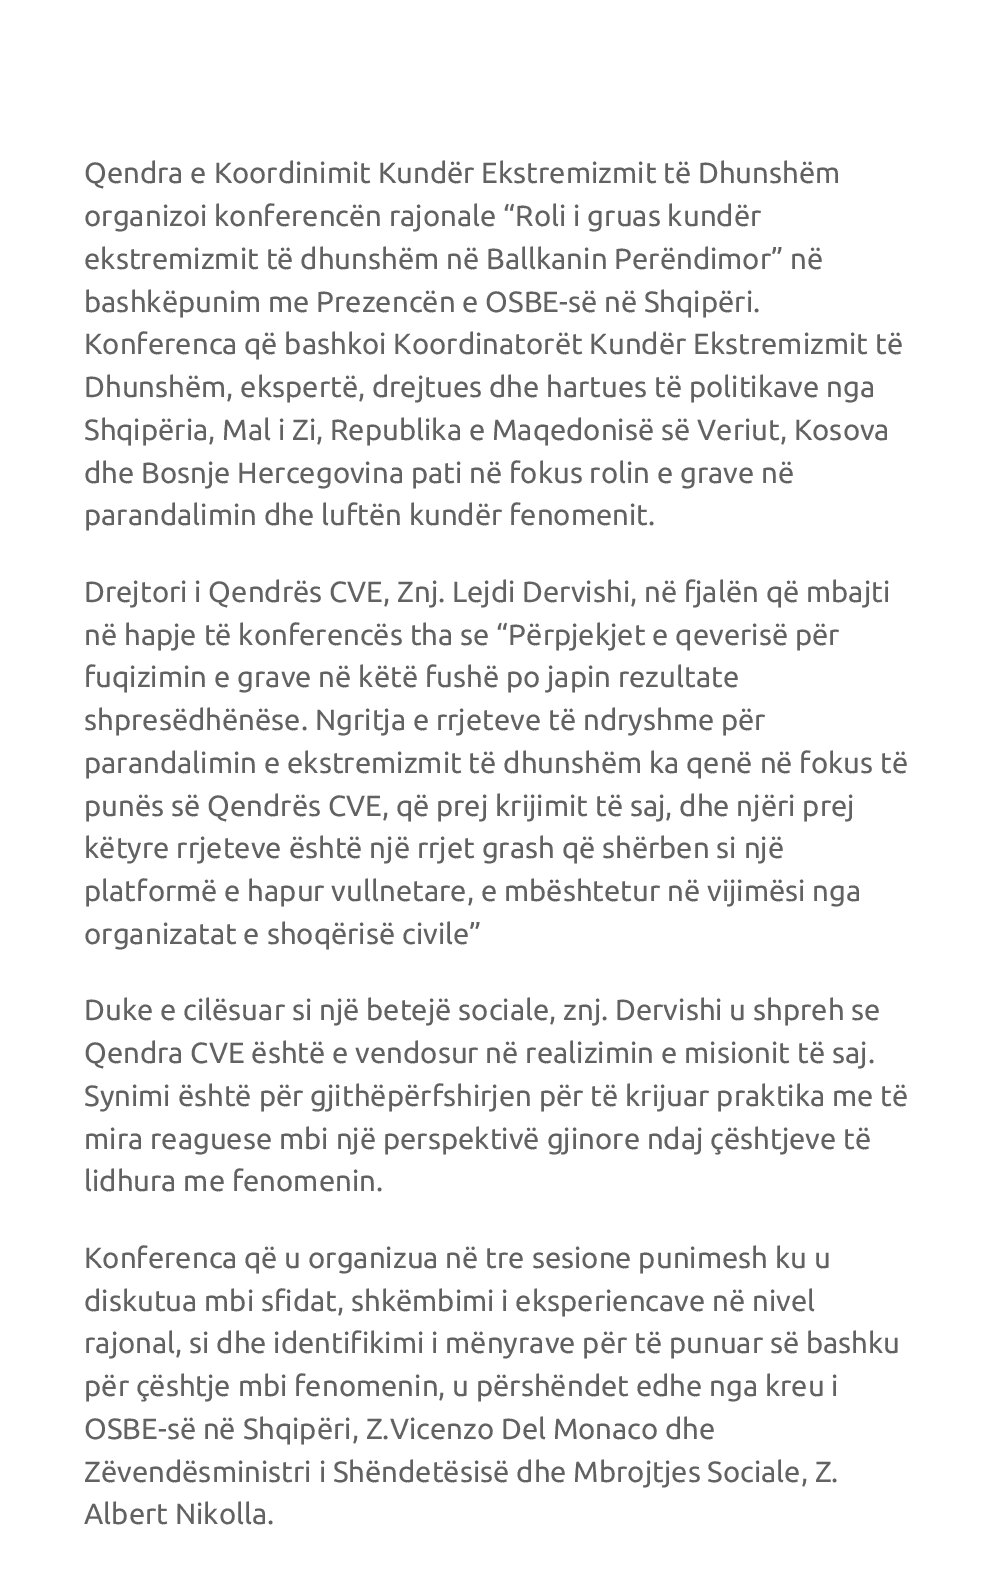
%!PS
<< /PageSize [1003 1590] >> setpagedevice
/rgb { dup -16 bitshift 255 div exch dup -8 bitshift 255 and 255 div exch 255 and 255 div setrgbcolor } def
/font { [ exch dup neg 0 0 3 -1 roll 0 0 ] selectfont } def
/text { moveto show } def
0 1590 translate 1 -1 scale
4 setmiterlimit
/s1 { /Ubuntu-Regular 29.25 font 16#626262 rgb } def
16#FFFFFF rgb
0 0 1003 1590 rectfill
s1
(Qendra e Koordinimit Kundër Ekstremizmit të Dhunshëm) 84 183 text
(organizoi konferencën rajonale “Roli i gruas kundër) 84 226 text
(ekstremizmit të dhunshëm në Ballkanin Perëndimor” në) 84 269 text
(bashkëpunim me Prezencën e OSBE-së në Shqipëri.) 84 312 text
(Konferenca që bashkoi Koordinatorët Kundër Ekstremizmit të) 84 354 text
(Dhunshëm, ekspertë, drejtues dhe hartues të politikave nga) 84 397 text
(Shqipëria, Mal i Zi, Republika e Maqedonisë së Veriut, Kosova) 84 440 text
(dhe Bosnje Hercegovina pati në fokus rolin e grave në) 84 483 text
(parandalimin dhe luftën kundër fenomenit.) 84 525 text
(Drejtori i Qendrës CVE, Znj. Lejdi Dervishi, në fjalën që mbajti) 84 602 text
(në hapje të konferencës tha se “Përpjekjet e qeverisë për) 84 645 text
(fuqizimin e grave në këtë fushë po japin rezultate) 84 687 text
(shpresëdhënëse. Ngritja e rrjeteve të ndryshme për) 84 730 text
(parandalimin e ekstremizmit të dhunshëm ka qenë në fokus të) 84 773 text
(punës së Qendrës CVE, që prej krijimit të saj, dhe njëri prej) 84 816 text
(këtyre rrjeteve është një rrjet grash që shërben si një) 84 858 text
(platformë e hapur vullnetare, e mbështetur në vijimësi nga) 84 901 text
(organizatat e shoqërisë civile”) 84 944 text
(Duke e cilësuar si një betejë sociale, znj. Dervishi u shpreh se) 84 1020 text
(Qendra CVE është e vendosur në realizimin e misionit të saj.) 84 1063 text
(Synimi është për gjithëpërfshirjen për të krijuar praktika me të) 84 1106 text
(mira reaguese mbi një perspektivë gjinore ndaj çështjeve të) 84 1149 text
(lidhura me fenomenin.) 84 1191 text
(Konferenca që u organizua në tre sesione punimesh ku u) 84 1268 text
(diskutua mbi sfidat, shkëmbimi i eksperiencave në nivel) 84 1311 text
(rajonal, si dhe identifikimi i mënyrave për të punuar së bashku) 84 1353 text
(për çështje mbi fenomenin, u përshëndet edhe nga kreu i) 84 1396 text
(OSBE-së në Shqipëri, Z.Vicenzo Del Monaco dhe) 84 1439 text
(Zëvendësministri i Shëndetësisë dhe Mbrojtjes Sociale, Z.) 84 1482 text
(Albert Nikolla.) 84 1524 text
showpage
